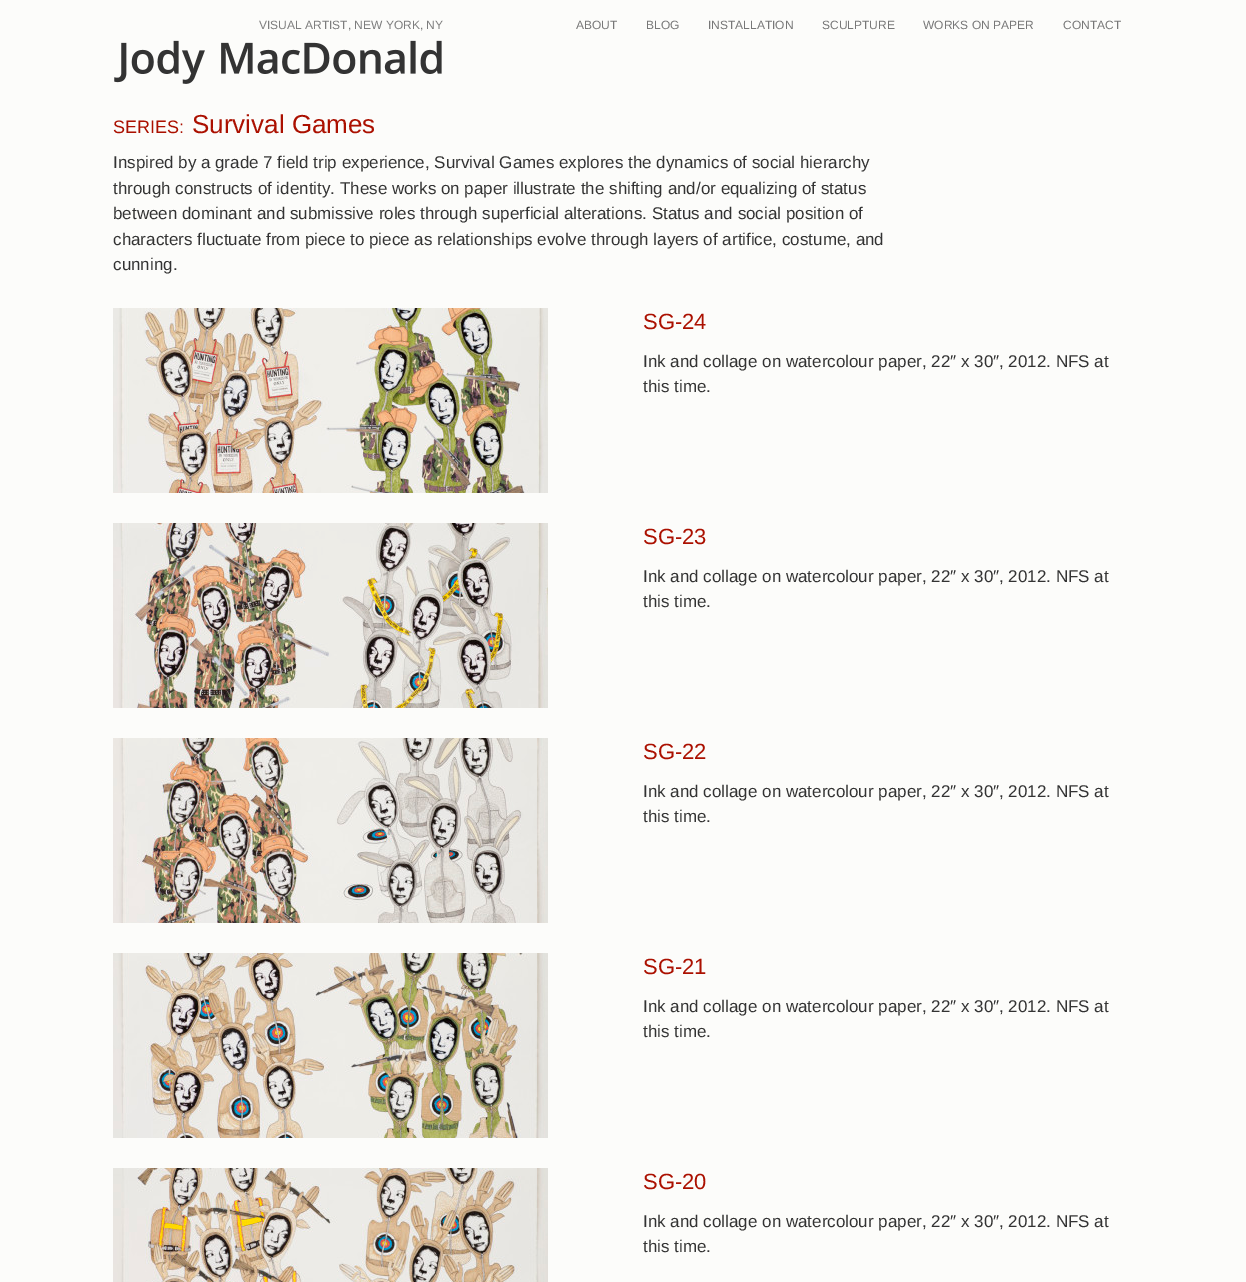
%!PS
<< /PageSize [1246 1282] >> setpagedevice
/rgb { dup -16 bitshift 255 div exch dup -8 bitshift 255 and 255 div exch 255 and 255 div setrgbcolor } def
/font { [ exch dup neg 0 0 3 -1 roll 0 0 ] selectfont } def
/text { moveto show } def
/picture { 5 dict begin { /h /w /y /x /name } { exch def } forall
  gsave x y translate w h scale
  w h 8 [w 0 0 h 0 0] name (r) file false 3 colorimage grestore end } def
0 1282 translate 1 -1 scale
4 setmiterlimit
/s1 { /LiberationSans-Regular 12 font 16#7D7D7D rgb } def
/s2 { /LiberationSans-Regular 12 font 16#777777 rgb } def
/s3 { /LiberationSans-Regular 18 font 16#AB1000 rgb } def
/s4 { /LiberationSans-Regular 26 font 16#AB1000 rgb } def
/s5 { /LiberationSans-Regular 17 font 16#333333 rgb } def
/s6 { /LiberationSans-Regular 22 font 16#AB1000 rgb } def
16#FCFCFA rgb
0 0 1246 1282 rectfill
s1
(VISUAL ARTIST, NEW YORK, NY) 259 29 text
(pic1.raw) 114 40 328 44 picture
s2
(ABOUT) 576 29 text
(BLOG) 646 29 text
(INSTALLATION) 708 29 text
(SCULPTURE) 822 29 text
(WORKS ON PAPER) 923 29 text
(CONTACT) 1063 29 text
s3
(SERIES:) 113 133 text
s4
(Survival Games) 192 133 text
s5
(Inspired by a grade 7 field trip experience, Survival Games explores the dynamics of social hierarchy) 113 168 text
(through constructs of identity. These works on paper illustrate the shifting and/or equalizing of status) 113 194 text
(between dominant and submissive roles through superficial alterations. Status and social position of) 113 219 text
(characters fluctuate from piece to piece as relationships evolve through layers of artifice, costume, and) 113 245 text
(cunning.) 113 270 text
(pic2.raw) 113 308 435 185 picture
s6
(SG-24) 643 329 text
s5
(Ink and collage on watercolour paper, 22″ x 30″, 2012. NFS at) 643 367 text
(this time.) 643 392 text
(pic3.raw) 113 523 435 185 picture
s6
(SG-23) 643 544 text
s5
(Ink and collage on watercolour paper, 22″ x 30″, 2012. NFS at) 643 582 text
(this time.) 643 607 text
(pic4.raw) 113 738 435 185 picture
s6
(SG-22) 643 759 text
s5
(Ink and collage on watercolour paper, 22″ x 30″, 2012. NFS at) 643 797 text
(this time.) 643 822 text
(pic5.raw) 113 953 435 185 picture
s6
(SG-21) 643 974 text
s5
(Ink and collage on watercolour paper, 22″ x 30″, 2012. NFS at) 643 1012 text
(this time.) 643 1037 text
(pic6.raw) 113 1168 435 114 picture
s6
(SG-20) 643 1189 text
s5
(Ink and collage on watercolour paper, 22″ x 30″, 2012. NFS at) 643 1227 text
(this time.) 643 1252 text
showpage
